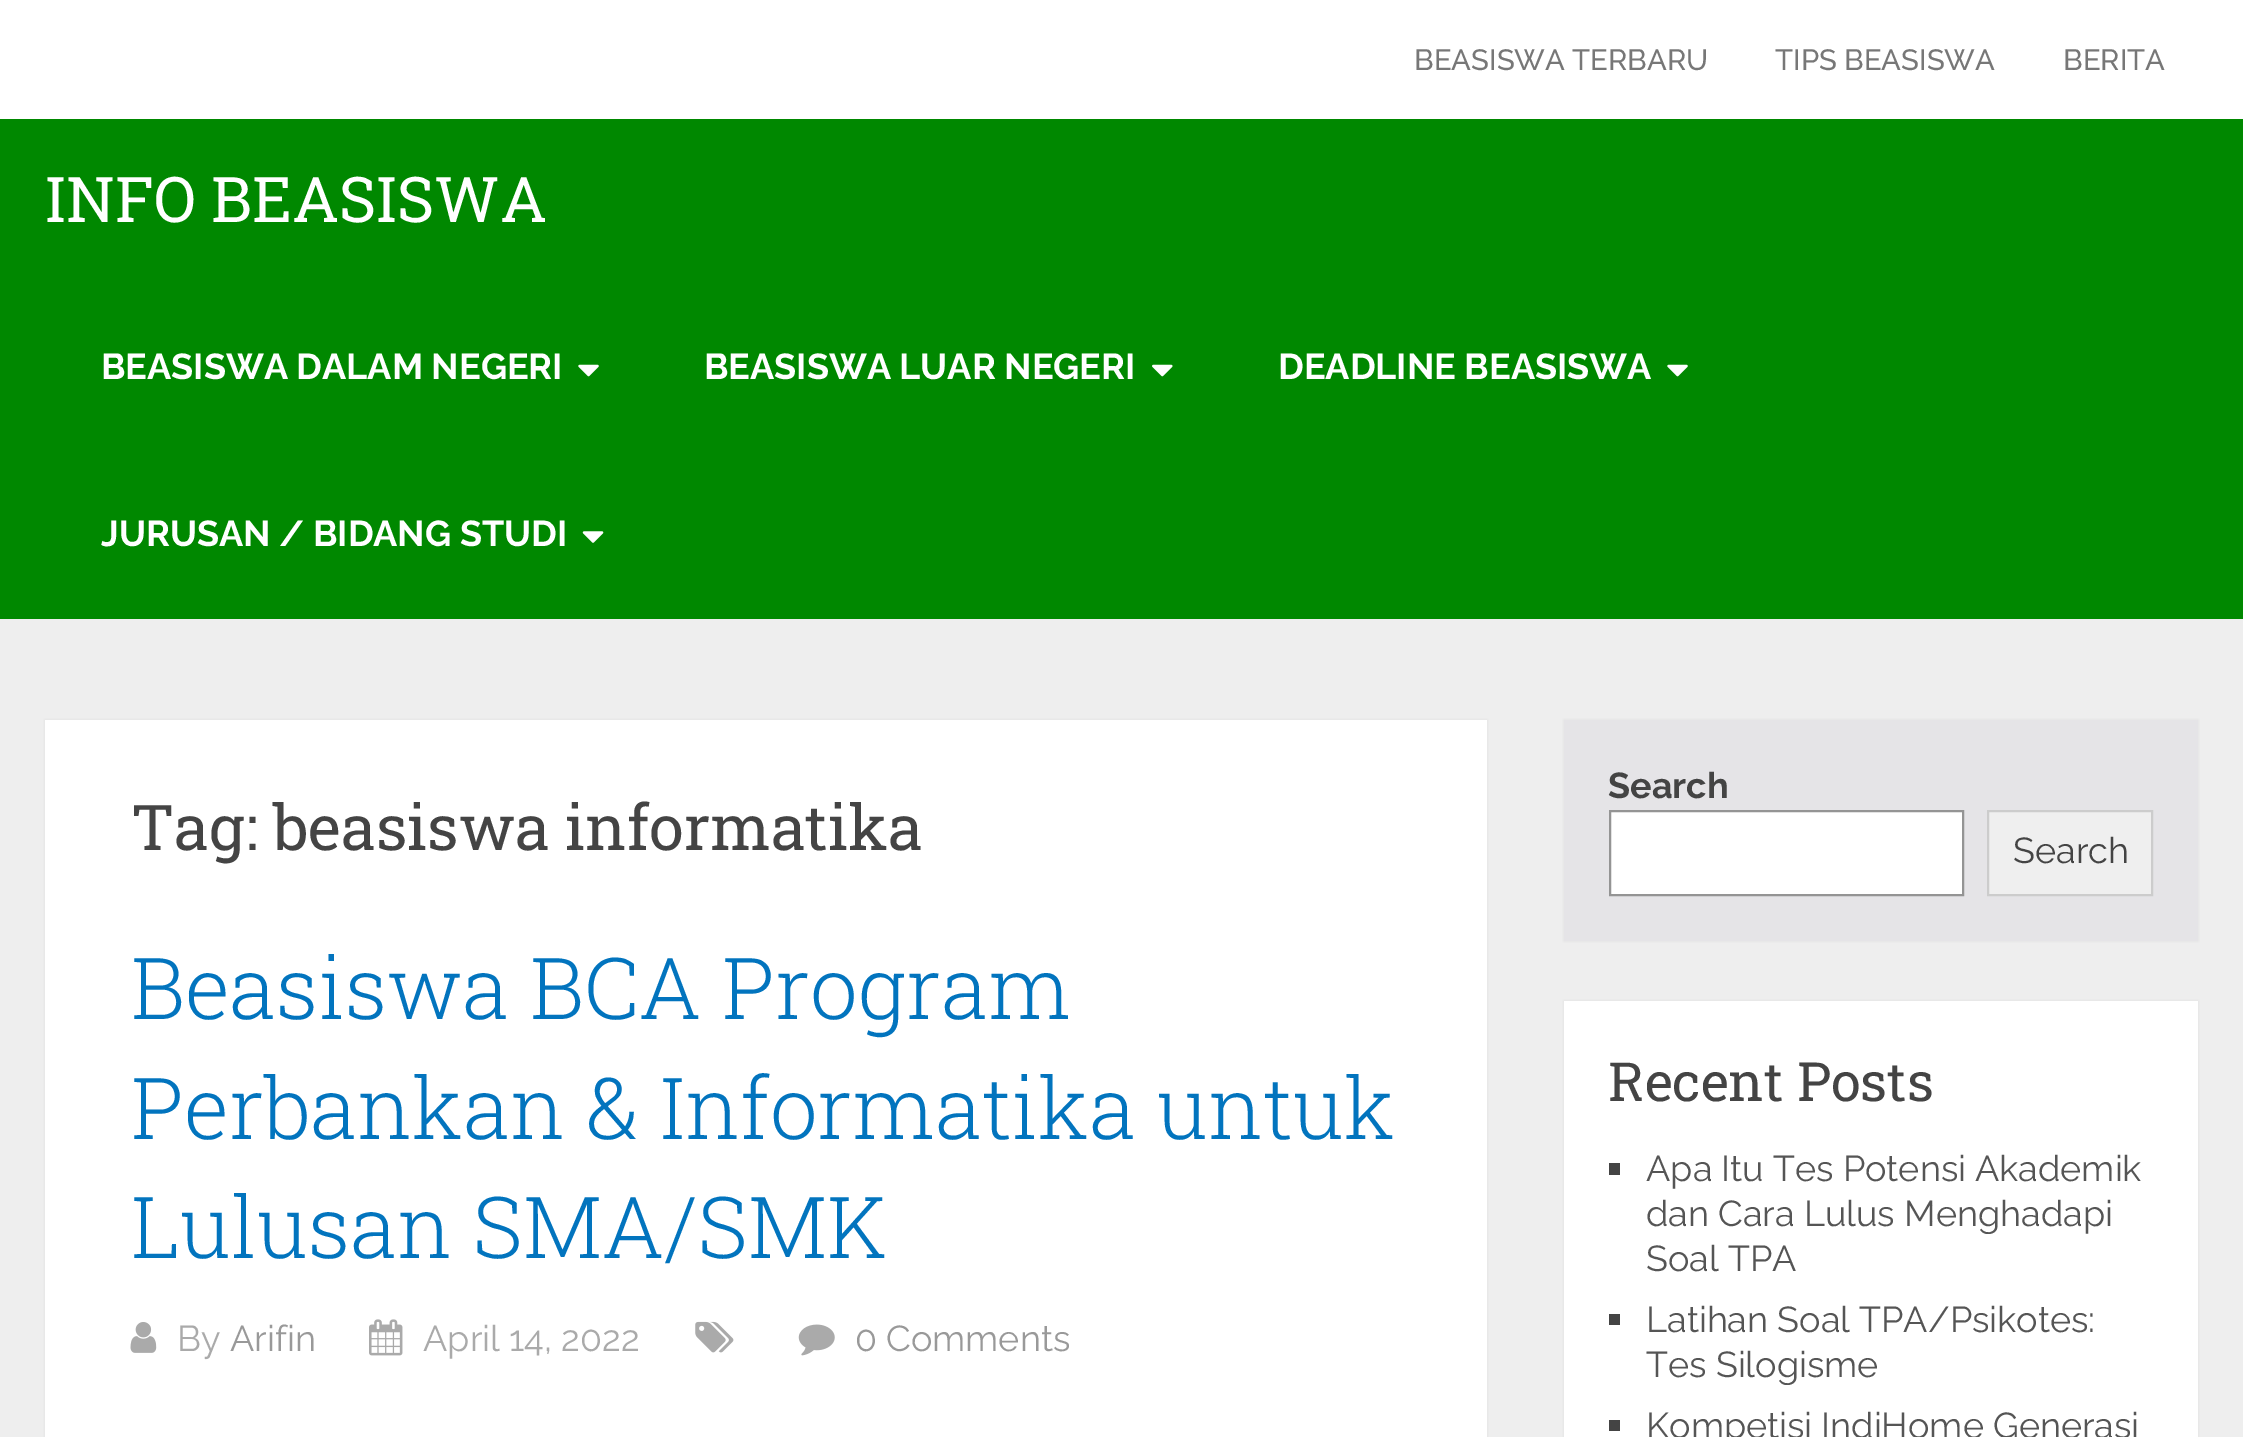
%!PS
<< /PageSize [2243 1437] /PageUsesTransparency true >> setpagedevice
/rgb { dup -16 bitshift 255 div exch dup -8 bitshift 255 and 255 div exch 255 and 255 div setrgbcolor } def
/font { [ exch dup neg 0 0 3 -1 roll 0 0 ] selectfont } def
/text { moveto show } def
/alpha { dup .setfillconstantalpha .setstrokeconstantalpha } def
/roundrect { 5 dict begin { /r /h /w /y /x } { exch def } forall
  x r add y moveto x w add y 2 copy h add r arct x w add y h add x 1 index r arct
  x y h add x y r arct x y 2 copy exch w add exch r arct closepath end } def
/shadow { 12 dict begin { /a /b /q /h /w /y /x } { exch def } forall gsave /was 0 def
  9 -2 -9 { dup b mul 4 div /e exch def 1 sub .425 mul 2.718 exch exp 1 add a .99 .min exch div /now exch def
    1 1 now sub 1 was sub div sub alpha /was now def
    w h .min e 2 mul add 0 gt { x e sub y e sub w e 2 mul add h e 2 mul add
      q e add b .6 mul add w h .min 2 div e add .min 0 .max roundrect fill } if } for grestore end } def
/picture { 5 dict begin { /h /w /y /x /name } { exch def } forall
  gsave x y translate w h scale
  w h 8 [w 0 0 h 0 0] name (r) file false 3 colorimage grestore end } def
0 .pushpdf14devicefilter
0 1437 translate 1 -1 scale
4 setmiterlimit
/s1 { /Raleway-Medium 29.25 font 16#777777 rgb } def
/s2 { /RobotoSlab-Regular 63 font 16#FFFFFF rgb } def
/s3 { /Raleway-Bold 36 font 16#FFFFFF rgb } def
/s4 { /RobotoSlab-Regular 63 font 16#444444 rgb } def
/s5 { /RobotoSlab-Light 85.5 font 16#0274BE rgb } def
/s6 { /Raleway-Regular 36 font 16#AAAAAA rgb } def
/s7 { /Raleway-Regular 36 font 16#999999 rgb } def
/s8 { /Raleway-Bold 36 font 16#444444 rgb } def
/s9 { /Raleway-Regular 36 font 16#444444 rgb } def
/s10 { /RobotoSlab-Regular 54 font 16#444444 rgb } def
/s11 { /Raleway-Regular 36 font 16#555555 rgb } def
16#EEEEEE rgb
0 0 2243 1437 rectfill
16#FFFFFF rgb
0 0 2243 119 rectfill
s1
(BEASISWA TERBARU) 1414 70 text
(TIPS BEASISWA) 1775 70 text
(BERITA) 2063 70 text
16#008800 rgb
0 119 2243 500 rectfill
s2
(INFO BEASISWA) 45 222 text
s3
(BEASISWA DALAM NEGERI) 101 379 text
(pic1.raw) 578 364 21 13 picture
(BEASISWA LUAR NEGERI) 704 379 text
(pic2.raw) 1152 364 21 13 picture
(DEADLINE BEASISWA) 1278 379 text
(pic1.raw) 1667 364 21 13 picture
(JURUSAN / BIDANG STUDI) 101 546 text
(pic3.raw) 582 531 22 12 picture
16#323232 rgb
45 720 1442 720 0 1 0.1 shadow
16#FFFFFF rgb
45 720 1442 717 rectfill
s4
(Tag: beasiswa informatika) 131 850 text
s5
(Beasiswa BCA Program) 131 1019 text
(Perbankan & Informatika untuk) 131 1139 text
(Lulusan SMA/SMK) 131 1258 text
(pic4.raw) 130 1322 27 31 picture
s6
(By) 177 1351 text
s7
(Arifin) 230 1351 text
(pic5.raw) 369 1319 34 37 picture
s6
(April 14, 2022) 423 1351 text
(pic6.raw) 695 1321 39 32 picture
(pic7.raw) 798 1324 37 32 picture
s7
(0 Comments) 855 1351 text
16#323232 rgb
1564 720 634 221 0 1 0.1 shadow
16#E5E4E7 rgb
1564 720 634 221 rectfill
s8
(Search) 1608 798 text
16#FFFFFF rgb
1610 811 moveto 1963 811 lineto 1963 895 lineto 1610 895 lineto closepath gsave fill grestore
16#949494 rgb
2 setlinewidth
stroke
16#EFEFEF rgb
1988 811 moveto 2152 811 lineto 2152 895 lineto 1988 895 lineto closepath gsave fill grestore
16#CCCCCC rgb
stroke
s9
(Search) 2013 863 text
16#323232 rgb
1564 1001 634 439 0 1 0.1 shadow
16#FFFFFF rgb
1564 1001 634 436 rectfill
s10
(Recent Posts) 1608 1101 text
1609 1163 11 12 rectfill
s11
(Apa Itu Tes Potensi Akademik) 1646 1181 text
(dan Cara Lulus Menghadapi) 1646 1226 text
(Soal TPA) 1646 1271 text
16#444444 rgb
1609 1314 11 11 rectfill
s11
(Latihan Soal TPA/Psikotes:) 1646 1332 text
(Tes Silogisme) 1646 1377 text
16#444444 rgb
1609 1420 11 11 rectfill
s11
(Kompetisi IndiHome Generasi) 1646 1438 text
.poppdf14devicefilter showpage
